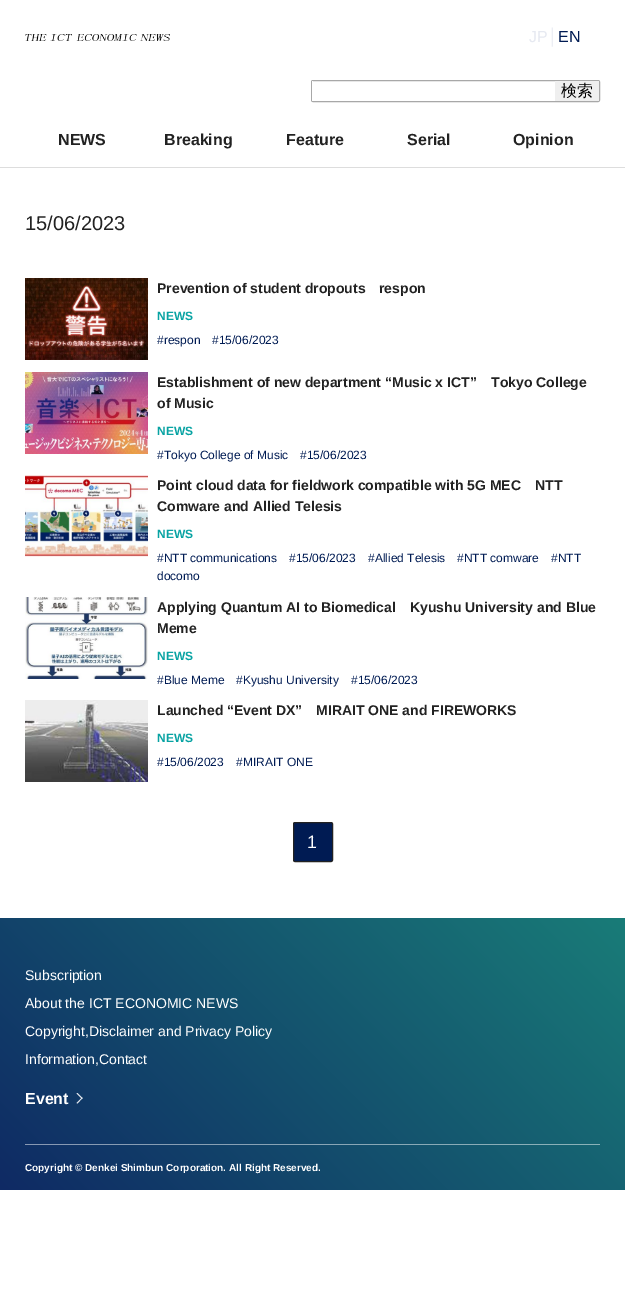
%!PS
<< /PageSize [625 1312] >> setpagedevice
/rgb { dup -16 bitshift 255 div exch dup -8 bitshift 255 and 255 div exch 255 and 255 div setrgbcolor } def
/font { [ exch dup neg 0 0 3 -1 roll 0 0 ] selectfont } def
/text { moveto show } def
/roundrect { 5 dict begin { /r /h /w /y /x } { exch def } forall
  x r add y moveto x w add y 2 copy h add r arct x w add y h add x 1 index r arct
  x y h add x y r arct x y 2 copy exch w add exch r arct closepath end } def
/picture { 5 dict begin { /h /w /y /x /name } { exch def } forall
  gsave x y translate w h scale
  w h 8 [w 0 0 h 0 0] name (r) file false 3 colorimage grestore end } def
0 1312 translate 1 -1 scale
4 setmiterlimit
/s1 { /LiberationSans-Regular 16 font 16#E6E9F1 rgb } def
/s2 { /LiberationSans-Regular 16 font 16#001B53 rgb } def
/s3 { /WenQuanYiZenHei-Medium 16 font 16#000000 rgb } def
/s4 { /LiberationSans-Bold 16 font 16#222222 rgb } def
/s5 { /LiberationSans-Regular 20 font 16#222222 rgb } def
/s6 { /LiberationSans-Bold 14 font 16#222222 rgb } def
/s7 { /LiberationSans-Bold 12 font 16#08A3A3 rgb } def
/s8 { /LiberationSans-Regular 12 font 16#001B53 rgb } def
/s9 { /LiberationSans-Regular 18 font 16#FFFFFF rgb } def
/s10 { /LiberationSans-Regular 14 font 16#FFFFFF rgb } def
/s11 { /LiberationSans-Bold 16 font 16#FFFFFF rgb } def
/s12 { /LiberationSans-Bold 10 font 16#FFFFFF rgb } def
16#FFFFFF rgb
0 0 625 1312 rectfill
16#DDDDDD rgb
0 167 625 1 rectfill
(pic1.raw) 25 34 145 7 picture
s1
(JP│) 529 42 text
s2
(EN) 558 42 text
16#A8A8A8 rgb
311.5 80.5 288 21 1.5 roundrect stroke
16#FFFFFF rgb
312 81 1 20 rectfill
16#EFEFEF rgb
555 81 44 20 rectfill
s3
(検索) 561 96 text
s4
(NEWS) 58 145 text
(Breaking) 164 145 text
(Feature) 286 145 text
(Serial) 407 145 text
(Opinion) 513 145 text
s5
(15/06/2023) 25 230 text
(pic2.raw) 25 278 123 82 picture
s6
(Prevention of student dropouts) 157 293 text
(respon) 379 293 text
s7
(NEWS) 157 320 text
s8
(#respon) 157 344 text
(#15/06/2023) 212 344 text
(pic3.raw) 25 372 123 82 picture
s6
(Establishment of new department “Music x ICT”) 157 387 text
(Tokyo College) 491 387 text
(of Music) 157 408 text
s7
(NEWS) 157 435 text
s8
(#Tokyo College of Music) 157 459 text
(#15/06/2023) 300 459 text
(pic4.raw) 25 475 123 82 picture
s6
(Point cloud data for fieldwork compatible with 5G MEC) 157 490 text
(NTT) 535 490 text
(Comware and Allied Telesis) 157 511 text
s7
(NEWS) 157 538 text
s8
(#NTT communications) 157 562 text
(#15/06/2023) 289 562 text
(#Allied Telesis) 368 562 text
(#NTT comware) 457 562 text
(#NTT) 551 562 text
(docomo) 157 580 text
(pic5.raw) 25 597 123 82 picture
s6
(Applying Quantum AI to Biomedical) 157 612 text
(Kyushu University and Blue) 410 612 text
(Meme) 157 633 text
s7
(NEWS) 157 660 text
s8
(#Blue Meme) 157 684 text
(#Kyushu University) 236 684 text
(#15/06/2023) 351 684 text
(pic6.raw) 25 700 123 82 picture
s6
(Launched “Event DX”) 157 715 text
(MIRAIT ONE and FIREWORKS) 316 715 text
s7
(NEWS) 157 742 text
s8
(#15/06/2023) 157 766 text
(#MIRAIT ONE) 236 766 text
293.5 822.5 39 39 1.5 roundrect gsave fill grestore
16#222222 rgb
stroke
s9
(1) 307 848 text
gsave 0 918 moveto 625 918 lineto 625 1190 lineto 0 1190 lineto closepath clip newpath
<< /ShadingType 2 /ColorSpace /DeviceRGB /Coords [88 1278 537 830] /Extend [true true] /Function << /FunctionType 2 /Domain [0 1] /C0 [0.059 0.165 0.392] /C1 [0.098 0.486 0.471] /N 1 >> >> shfill grestore
gsave 25 1144 moveto 600 1144 lineto 600 1145 lineto 25 1145 lineto closepath clip newpath
<< /ShadingType 2 /ColorSpace /DeviceRGB /Coords [88 1278 537 830] /Extend [true true] /Function << /FunctionType 2 /Domain [0 1] /C0 [0.529 0.584 0.698] /C1 [0.549 0.745 0.737] /N 1 >> >> shfill grestore
s10
(Subscription) 25 980 text
(About the ICT ECONOMIC NEWS) 25 1008 text
(Copyright,Disclaimer and Privacy Policy) 25 1036 text
(Information,Contact) 25 1064 text
s11
(Event) 25 1104 text
16#E6E9F0 rgb
77.5 1093 moveto 82.5 1098 lineto 82 1099 lineto 76.5 1093.5 lineto closepath fill
82 1097.5 moveto 82.5 1098 lineto 77.5 1103.5 lineto 76.5 1103 lineto closepath fill
s12
(Copyright © Denkei Shimbun Corporation. All Right Reserved.) 25 1171 text
showpage
